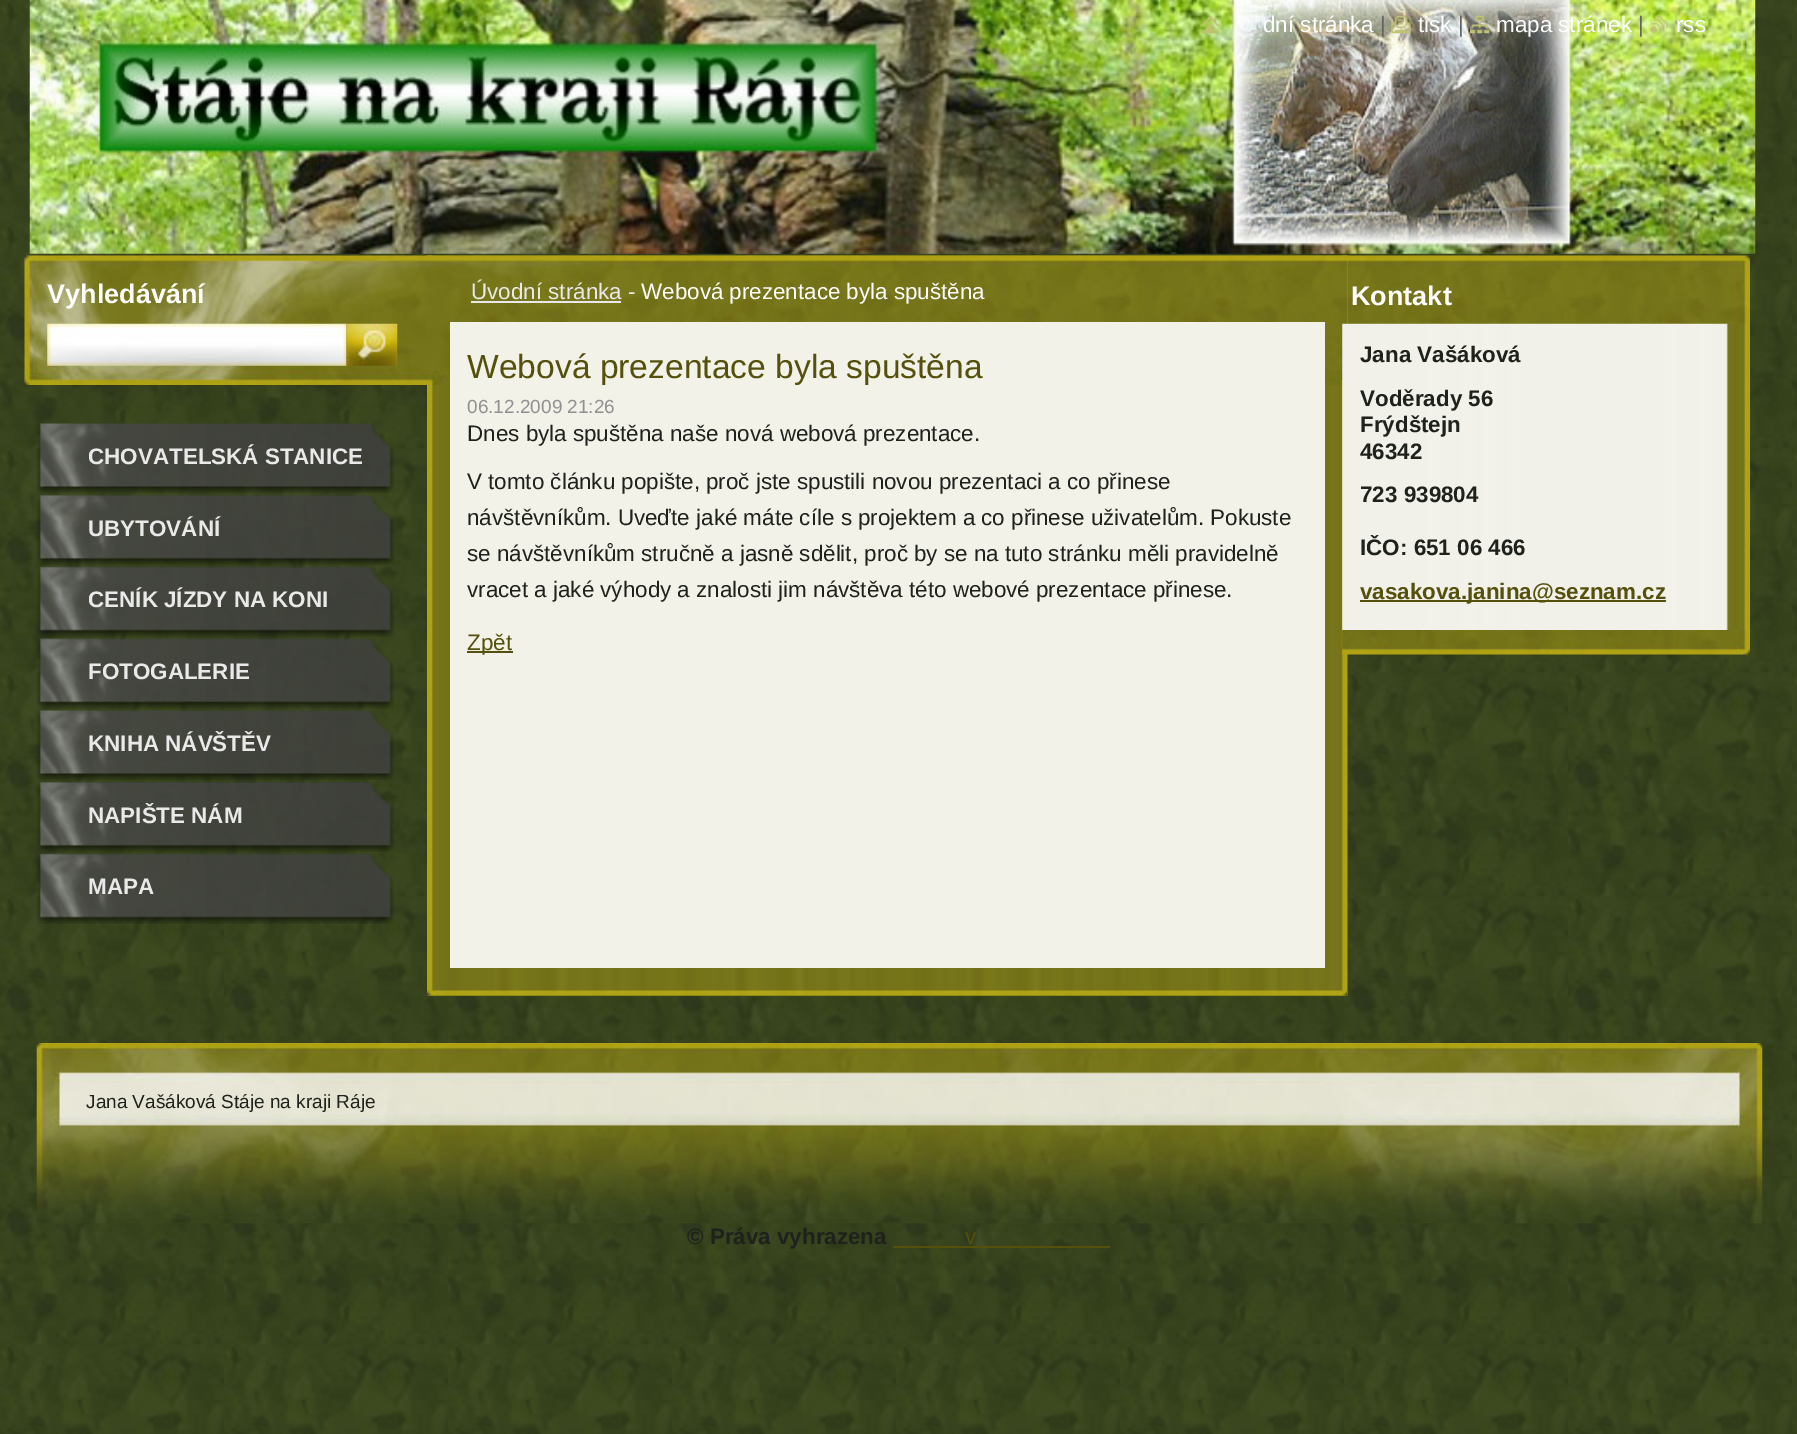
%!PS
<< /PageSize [1797 1434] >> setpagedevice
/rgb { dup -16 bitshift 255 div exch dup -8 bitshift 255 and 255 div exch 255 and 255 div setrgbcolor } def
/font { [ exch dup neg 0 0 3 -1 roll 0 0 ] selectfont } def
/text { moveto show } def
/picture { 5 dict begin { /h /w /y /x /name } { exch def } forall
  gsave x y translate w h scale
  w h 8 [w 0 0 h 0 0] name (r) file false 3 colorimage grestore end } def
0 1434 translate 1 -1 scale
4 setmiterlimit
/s1 { /LiberationSans-Regular 22.4 font 16#FFFFFF rgb } def
/s2 { /LiberationSans-Regular 22.4 font 16#646464 rgb } def
/s3 { /LiberationSans-Bold 27 font 16#FFFFFF rgb } def
/s4 { /LiberationSans-Regular 22.4 font 16#E9E9E9 rgb } def
/s5 { /LiberationSans-Regular 33.6 font 16#56500D rgb } def
/s6 { /LiberationSans-Regular 19 font 16#919192 rgb } def
/s7 { /LiberationSans-Regular 22.4 font 16#1F221C rgb } def
/s8 { /LiberationSans-Regular 22.4 font 16#56500D rgb } def
/s9 { /LiberationSans-Bold 22.4 font 16#1F221C rgb } def
/s10 { /LiberationSans-Bold 22.4 font 16#56500D rgb } def
/s11 { /LiberationSans-Bold 22.4 font 16#E9E9E9 rgb } def
/s12 { /LiberationSans-Regular 19 font 16#1F221C rgb } def
16#FFFFFF rgb
0 0 1797 1434 rectfill
(pic1.raw) 0 1223 1797 211 picture
(pic2.raw) 0 0 1797 1223 picture
(pic3.raw) 29 0 1727 254 picture
(pic4.raw) 1200 15 20 19 picture
s1
(dní stránka) 1263 32 text
s2
(|) 1380 32 text
(pic5.raw) 1391 15 20 19 picture
s1
(tisk) 1418 32 text
s2
(|) 1458 32 text
(pic6.raw) 1470 15 20 19 picture
s1
(mapa stránek) 1496 32 text
s2
(|) 1638 32 text
(pic7.raw) 1650 15 18 19 picture
s1
(rss) 1676 32 text
(pic8.raw) 24 255 1726 130 picture
s3
(Vyhledávání) 47 303 text
(pic9.raw) 47 323 300 43 picture
(pic10.raw) 346 323 52 43 picture
(pic11.raw) 427 255 921 741 picture
(pic12.raw) 427 255 921 130 picture
s4
(Úvodní stránka -) 471 299 text
471 301 150 2 rectfill
s1
(Webová prezentace byla spuštěna) 641 299 text
16#F2F2E9 rgb
450 322 875 646 rectfill
s5
(Webová prezentace byla spuštěna) 467 378 text
s6
(06.12.2009 21:26) 467 413 text
s7
(Dnes byla spuštěna naše nová webová prezentace.) 467 441 text
(V tomto článku popište, proč jste spustili novou prezentaci a co přinese) 467 489 text
(návštěvníkům. Uveďte jaké máte cíle s projektem a co přinese uživatelům. Pokuste) 467 525 text
(se návštěvníkům stručně a jasně sdělit, proč by se na tuto stránku měli pravidelně) 467 561 text
(vracet a jaké výhody a znalosti jim návštěva této webové prezentace přinese.) 467 597 text
16#56500D rgb
467 651 46 2 rectfill
(Zpět) 467 650 text
(pic13.raw) 427 990 921 6 picture
s3
(Kontakt) 1351 305 text
(pic14.raw) 1342 323 408 307 picture
s9
(Jana Vašáková) 1360 362 text
(Voděrady 56) 1360 406 text
(Frýdštejn) 1360 432 text
(46342) 1360 459 text
(723 939804) 1360 502 text
(IČO: 651 06 466) 1360 555 text
16#56500D rgb
1360 600 306 2 rectfill
(vasakova.janina@seznam.cz) 1360 599 text
(pic15.raw) 1342 630 408 25 picture
(pic16.raw) 36 423 358 70 picture
s11
(CHOVATELSKÁ STANICE) 88 464 text
(pic17.raw) 36 495 358 70 picture
(UBYTOVÁNÍ) 88 536 text
(pic18.raw) 36 566 358 71 picture
(CENÍK JÍZDY NA KONI) 88 607 text
(pic19.raw) 36 638 358 71 picture
(FOTOGALERIE) 88 679 text
(pic20.raw) 36 710 358 70 picture
(KNIHA NÁVŠTĚV) 88 751 text
(pic21.raw) 36 782 358 70 picture
(NAPIŠTE NÁM) 88 823 text
(pic22.raw) 36 853 358 71 picture
(MAPA) 88 894 text
(pic23.raw) 36 1043 1727 181 picture
s12
(Jana Vašáková Stáje na kraji Ráje) 86 1108 text
s9
(© Práva vyhrazena) 687 1244 text
s8
(v) 965 1244 text
893 1246 217 2 rectfill
showpage
